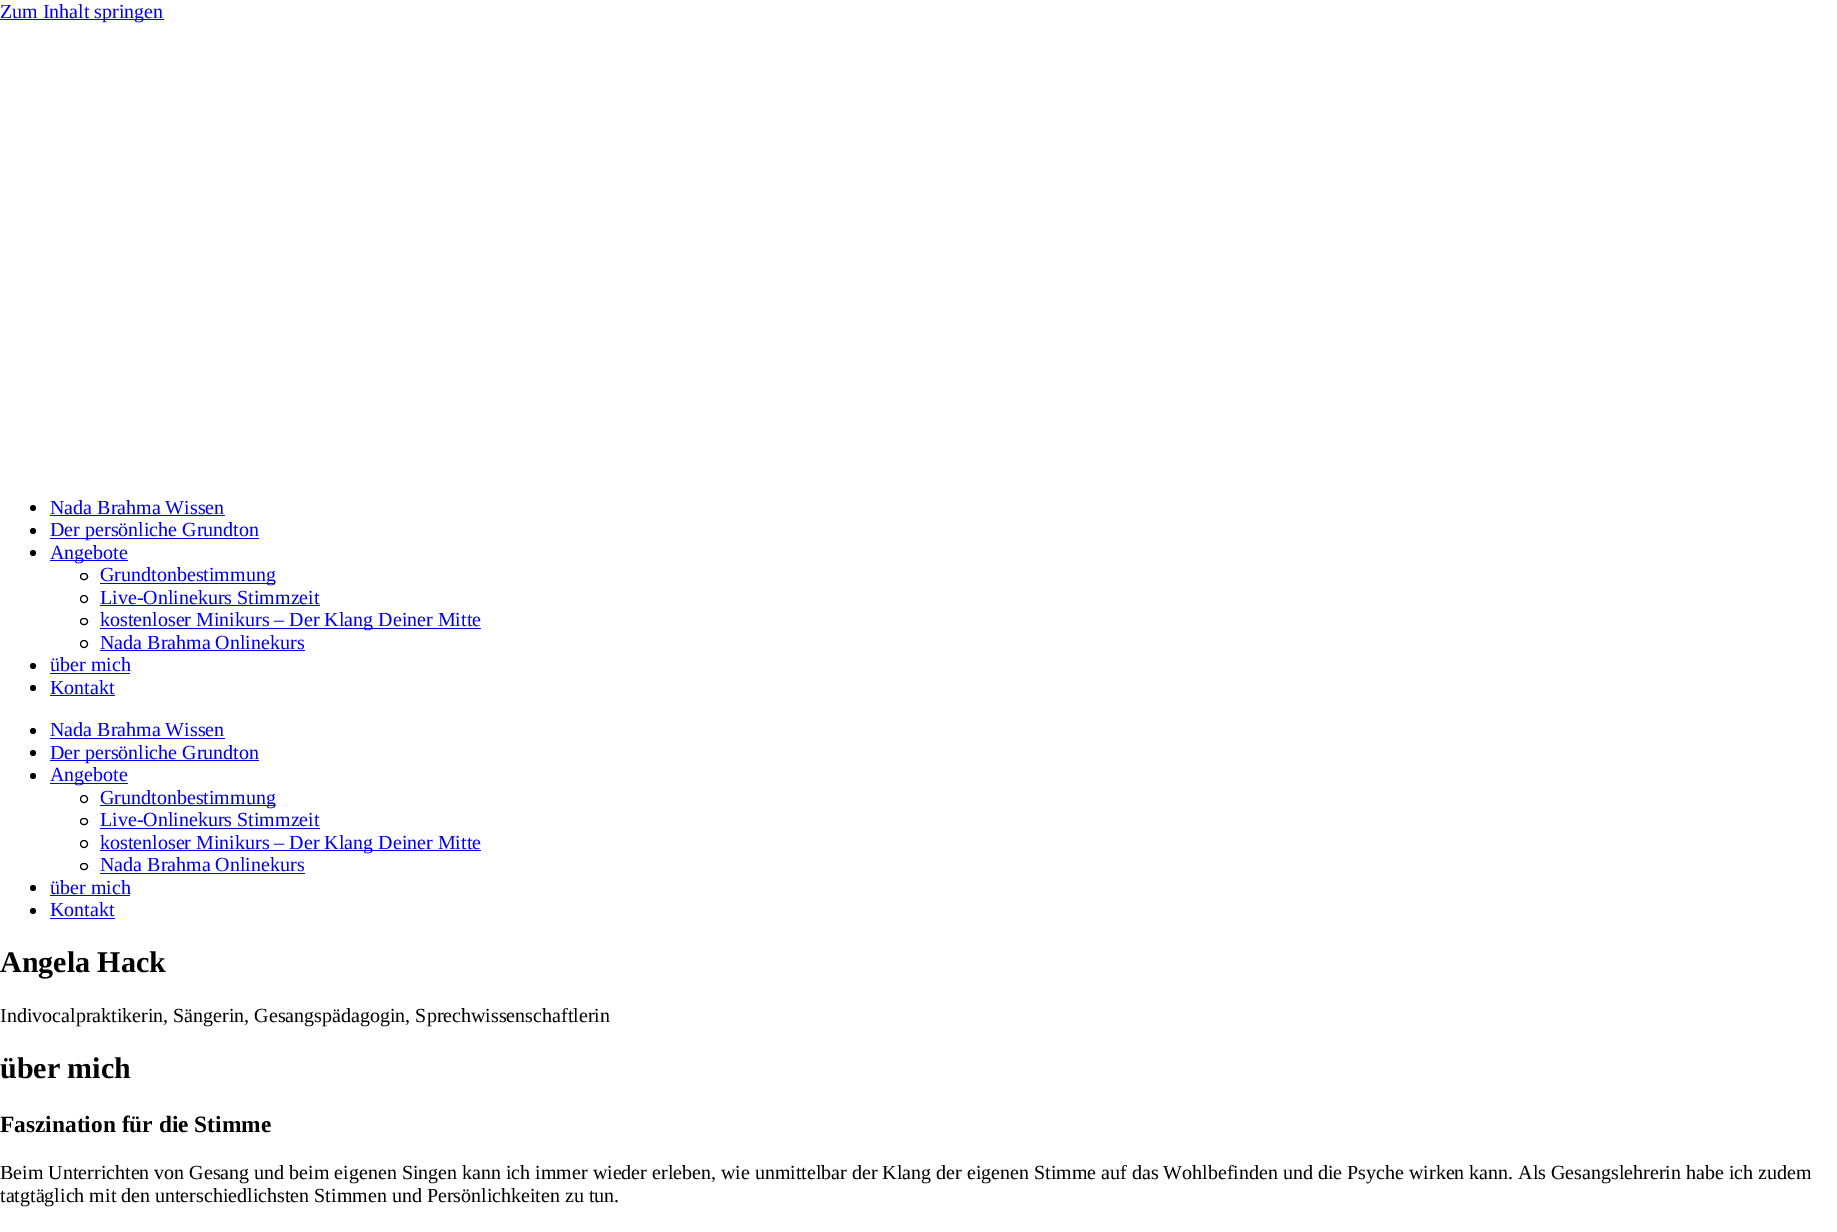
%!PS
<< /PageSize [1837 1232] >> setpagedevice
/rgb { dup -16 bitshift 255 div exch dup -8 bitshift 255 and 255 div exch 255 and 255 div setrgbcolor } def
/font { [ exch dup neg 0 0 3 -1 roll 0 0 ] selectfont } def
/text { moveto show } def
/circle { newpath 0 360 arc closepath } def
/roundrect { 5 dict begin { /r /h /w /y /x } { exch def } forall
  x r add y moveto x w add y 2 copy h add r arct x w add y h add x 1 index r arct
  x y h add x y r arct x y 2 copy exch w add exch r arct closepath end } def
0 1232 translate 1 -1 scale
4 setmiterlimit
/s1 { /LiberationSerif-Regular 20 font 16#0000EE rgb } def
/s2 { /LiberationSerif-Bold 30 font 16#000000 rgb } def
/s3 { /LiberationSerif-Regular 20 font 16#000000 rgb } def
/s4 { /LiberationSerif-Bold 23.4 font 16#000000 rgb } def
16#FFFFFF rgb
0 0 1837 1232 rectfill
16#0000EE rgb
0 19 164 1 rectfill
s1
(Zum Inhalt springen) 0 18 text
16#000000 rgb
33 508 3 circle fill
s1
(Nada Brahma Wissen) 50 514 text
50 515 175 1 rectfill
16#000000 rgb
33 531 3 circle fill
16#0000EE rgb
50 538 209 1 rectfill
(Der persönliche Grundton) 50 536 text
16#000000 rgb
33 553 3 circle fill
16#0000EE rgb
50 560 78 1 rectfill
(Angebote) 50 559 text
16#000000 rgb
80.5 573.5 7 6 3 roundrect stroke
16#0000EE rgb
100 583 175 1 rectfill
(Grundtonbestimmung) 100 581 text
16#000000 rgb
84 599 3.5 circle stroke
s1
(Live-Onlinekurs Stimmzeit) 100 604 text
100 605 220 1 rectfill
16#000000 rgb
80.5 618.5 7 6 3 roundrect stroke
16#0000EE rgb
100 628 381 1 rectfill
(kostenloser Minikurs – Der Klang Deiner Mitte) 100 626 text
16#000000 rgb
84 644 3.5 circle stroke
s1
(Nada Brahma Onlinekurs) 100 649 text
100 650 205 1 rectfill
16#000000 rgb
33 666 3 circle fill
s1
(über mich) 50 671 text
50 673 80 1 rectfill
16#000000 rgb
33 688 3 circle fill
s1
(Kontakt) 50 694 text
50 695 65 1 rectfill
16#000000 rgb
33 731 3 circle fill
s1
(Nada Brahma Wissen) 50 736 text
50 738 175 1 rectfill
16#000000 rgb
33 753 3 circle fill
16#0000EE rgb
50 760 209 1 rectfill
(Der persönliche Grundton) 50 759 text
16#000000 rgb
33 776 3 circle fill
16#0000EE rgb
50 783 78 1 rectfill
(Angebote) 50 781 text
16#000000 rgb
84 799 3.5 circle stroke
16#0000EE rgb
100 805 175 1 rectfill
(Grundtonbestimmung) 100 804 text
16#000000 rgb
80.5 818.5 7 6 3 roundrect stroke
s1
(Live-Onlinekurs Stimmzeit) 100 826 text
100 828 220 1 rectfill
16#000000 rgb
84 844 3.5 circle stroke
16#0000EE rgb
100 850 381 1 rectfill
(kostenloser Minikurs – Der Klang Deiner Mitte) 100 849 text
16#000000 rgb
80.5 863.5 7 6 3 roundrect stroke
s1
(Nada Brahma Onlinekurs) 100 871 text
100 873 205 1 rectfill
16#000000 rgb
33 888 3 circle fill
s1
(über mich) 50 894 text
50 895 80 1 rectfill
16#000000 rgb
33 911 3 circle fill
s1
(Kontakt) 50 916 text
50 918 65 1 rectfill
s2
(Angela Hack) 0 972 text
s3
(Indivocalpraktikerin, Sängerin, Gesangspädagogin, Sprechwissenschaftlerin) 0 1022 text
s2
(über mich) 0 1078 text
s4
(Faszination für die Stimme) 0 1132 text
s3
(Beim Unterrichten von Gesang und beim eigenen Singen kann ich immer wieder erleben, wie unmittelbar der Klang der eigenen Stimme auf das Wohlbefinden und die Psyche wirken kann. Als Gesangslehrerin habe ich zudem) 0 1179 text
(tatgtäglich mit den unterschiedlichsten Stimmen und Persönlichkeiten zu tun.) 0 1202 text
showpage
